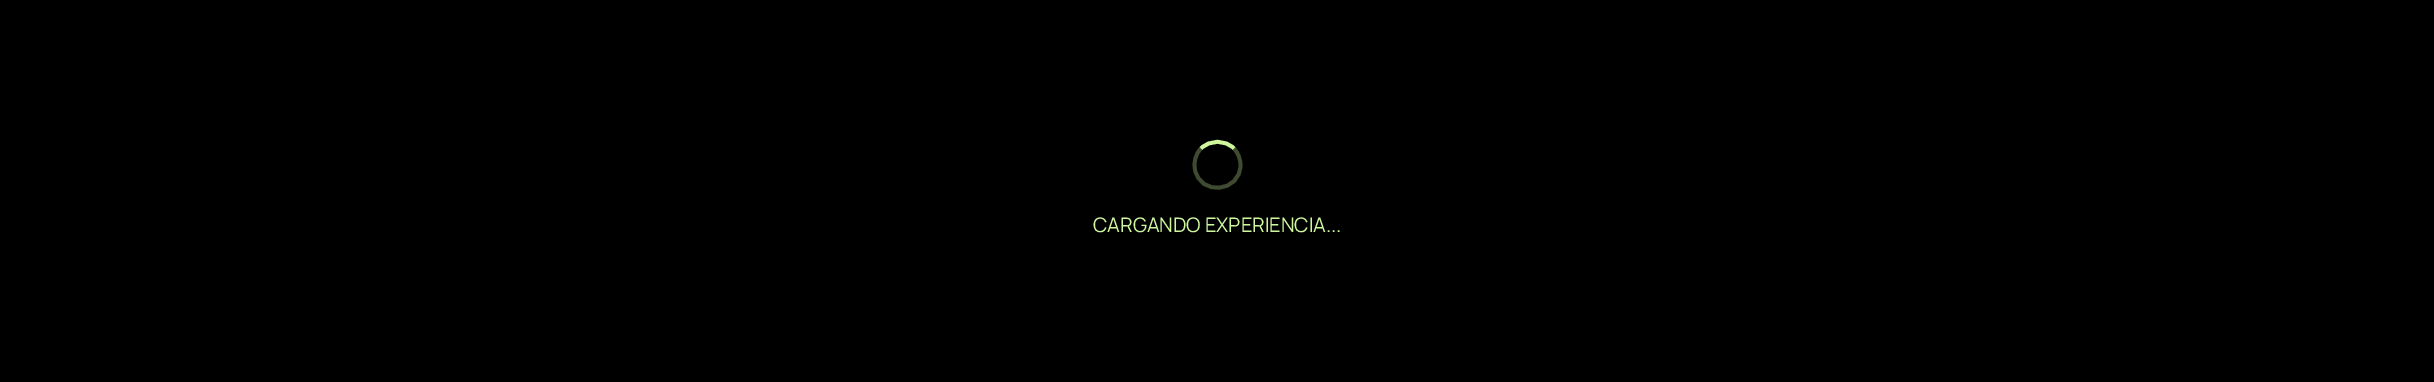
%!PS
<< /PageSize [2434 382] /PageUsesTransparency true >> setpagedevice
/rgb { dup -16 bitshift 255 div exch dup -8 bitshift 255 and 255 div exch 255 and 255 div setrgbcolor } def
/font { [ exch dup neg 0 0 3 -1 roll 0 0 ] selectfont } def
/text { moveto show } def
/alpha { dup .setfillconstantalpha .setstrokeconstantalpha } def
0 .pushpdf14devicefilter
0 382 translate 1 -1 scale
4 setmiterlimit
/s1 { /Manrope-Regular 20 font 16#CEF79E rgb } def
16#000000 rgb
0 0 2434 382 rectfill
16#CEF79E rgb
3.8 setlinewidth
1201 148.5 moveto 1210 139.5 1225 139.5 1234 148.5 curveto stroke
0.3 alpha
1234 148.5 moveto 1238 153 1240.5 159 1240.5 165 curveto 1240.5 192.5 1200 196.5 1195 169.5 curveto 1193.5 162 1195.5 154 1201 148.5 curveto stroke
1 alpha
s1
(CARGANDO EXPERIENCIA...) 1093 232 text
.poppdf14devicefilter showpage
